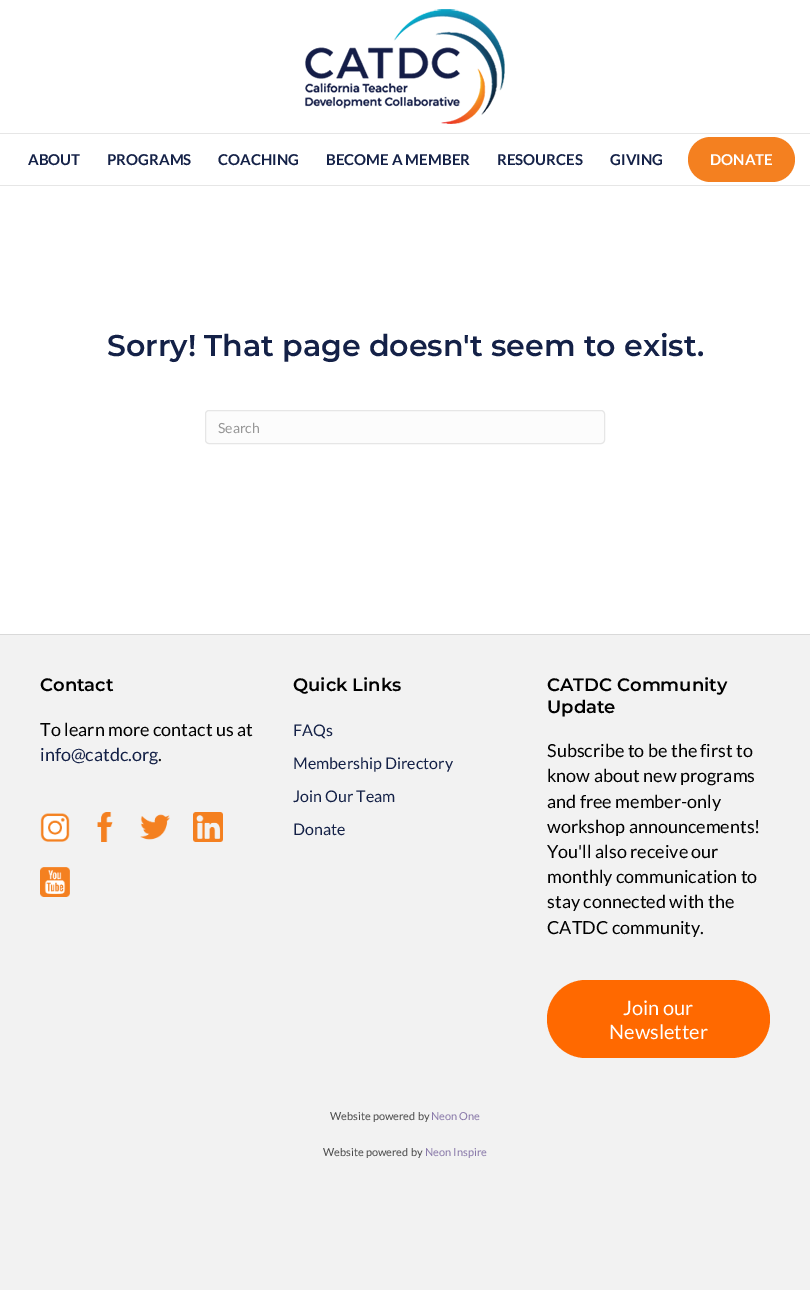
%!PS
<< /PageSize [810 1290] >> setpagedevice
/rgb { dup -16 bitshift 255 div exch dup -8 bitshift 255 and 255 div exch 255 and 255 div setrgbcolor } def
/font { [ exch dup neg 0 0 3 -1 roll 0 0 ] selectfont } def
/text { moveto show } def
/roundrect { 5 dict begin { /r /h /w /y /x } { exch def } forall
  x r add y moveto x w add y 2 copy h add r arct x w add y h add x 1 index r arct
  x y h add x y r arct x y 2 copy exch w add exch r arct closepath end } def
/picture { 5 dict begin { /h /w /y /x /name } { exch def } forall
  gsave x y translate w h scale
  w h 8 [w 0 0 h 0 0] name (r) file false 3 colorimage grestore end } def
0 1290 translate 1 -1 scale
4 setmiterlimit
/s1 { /Lato-Bold 15 font 16#142147 rgb } def
/s2 { /Lato-Bold 15 font 16#FFFFFF rgb } def
/s3 { /Montserrat-Thin 30 font 16#142147 rgb } def
/s4 { /Lato-Regular 14 font 16#979797 rgb } def
/s5 { /Montserrat-Thin 18 font 16#000000 rgb } def
/s6 { /Lato-Regular 18 font 16#000000 rgb } def
/s7 { /Lato-Regular 18 font 16#142147 rgb } def
/s8 { /Lato-Regular 16 font 16#142147 rgb } def
/s9 { /Lato-Regular 20 font 16#FFFFFF rgb } def
/s10 { /Lato-Regular 11 font 16#494949 rgb } def
/s11 { /Lato-Regular 11 font 16#8878A9 rgb } def
16#F2F2F2 rgb
0 0 810 1290 rectfill
16#FFFFFF rgb
0 0 810 185 rectfill
(pic1.raw) 305 9 200 115 picture
16#E6E6E6 rgb
0 133 810 1 rectfill
0 185 810 1 rectfill
s1
(ABOUT) 28 165 text
(PROGRAMS) 107 165 text
(COACHING) 218 165 text
(BECOME A MEMBER) 326 165 text
(RESOURCES) 497 165 text
(GIVING) 610 165 text
16#F48020 rgb
688 137 107 45 22.5 roundrect fill
s2
(DONATE) 710 165 text
0 186 810 448 rectfill
s3
(Sorry! That page doesn't seem to exist.) 107 356 text
16#FCFCFC rgb
205.5 410.5 399 33 3.5 roundrect gsave fill grestore
16#E6E6E6 rgb
stroke
s4
(Search) 218 433 text
16#D9D9D9 rgb
0 634 810 1 rectfill
s5
(Contact) 40 691 text
s6
(To learn more contact us at) 40 736 text
s7
(info@catdc.org) 40 761 text
s6
(.) 158 761 text
(pic2.raw) 40 813 30 29 picture
(pic3.raw) 97 812 16 30 picture
(pic4.raw) 140 814 30 26 picture
(pic5.raw) 193 812 30 30 picture
(pic6.raw) 40 867 30 30 picture
s5
(Quick Links) 293 691 text
s8
(FAQs) 293 736 text
(Membership Directory) 293 769 text
(Join Our Team) 293 802 text
(Donate) 293 835 text
s5
(CATDC Community) 547 691 text
(Update) 547 713 text
s6
(Subscribe to be the first to) 547 757 text
(know about new programs) 547 782 text
(and free member-only) 547 808 text
(workshop announcements!) 547 833 text
(You'll also receive our) 547 858 text
(monthly communication to) 547 883 text
(stay connected with the) 547 908 text
(CATDC community.) 547 934 text
16#FF6900 rgb
547 980 223 78 39 roundrect fill
s9
(Join our) 623 1015 text
(Newsletter) 609 1039 text
s10
(Website powered by) 330 1120 text
s11
(Neon One) 431 1120 text
s10
(Website powered by) 323 1156 text
s11
(Neon Inspire) 425 1156 text
showpage
